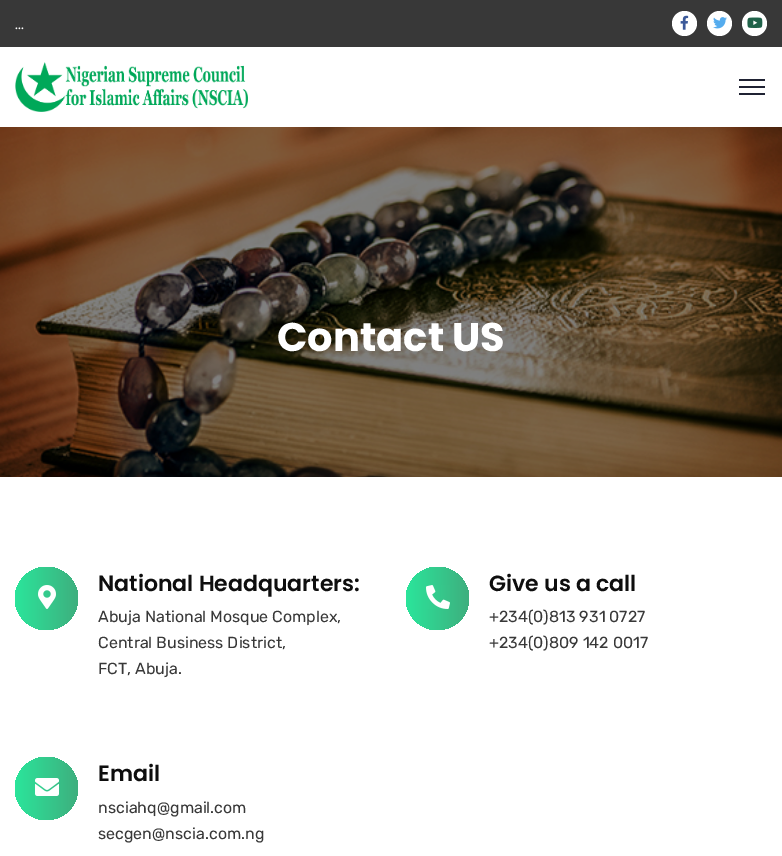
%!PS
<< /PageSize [782 856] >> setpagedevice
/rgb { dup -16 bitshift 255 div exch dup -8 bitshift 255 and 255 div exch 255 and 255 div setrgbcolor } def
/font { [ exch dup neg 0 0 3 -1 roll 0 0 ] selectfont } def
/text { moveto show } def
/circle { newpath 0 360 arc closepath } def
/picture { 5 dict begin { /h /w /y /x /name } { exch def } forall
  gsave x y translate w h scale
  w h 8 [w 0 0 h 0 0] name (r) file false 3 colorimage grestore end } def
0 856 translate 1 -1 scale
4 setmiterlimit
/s1 { /Poppins-Regular 14 font 16#FFFFFF rgb } def
/s2 { /Poppins-Bold 40 font 16#FFFFFF rgb } def
/s3 { /Poppins-SemiBold 22 font 16#0E0E0E rgb } def
/s4 { /Rubik-Regular 16 font 16#383838 rgb } def
16#FFFFFF rgb
0 0 782 856 rectfill
16#383838 rgb
0 0 782 47 rectfill
s1
(...) 15 29 text
684.5 23.5 12.5 circle fill
(pic1.raw) 680 15 9 15 picture
719.5 23.5 12.5 circle fill
(pic2.raw) 713 17 14 12 picture
754.5 23.5 12.5 circle fill
(pic3.raw) 747 17 16 11 picture
(pic4.raw) 15 62 233 50 picture
16#1F2233 rgb
739 79 26 2 rectfill
739 86 26 2 rectfill
739 93 26 2 rectfill
(pic5.raw) 0 127 782 350 picture
s2
(Contact US) 277 351 text
gsave 46.5 598.5 31.5 circle clip newpath
<< /ShadingType 2 /ColorSpace /DeviceRGB /Coords [15 599 78 599] /Extend [true true] /Function << /FunctionType 2 /Domain [0 1] /C0 [0.169 0.898 0.608] /C1 [0.243 0.686 0.494] /N 1 >> >> shfill grestore
(pic6.raw) 38 585 18 24 picture
s3
(National Headquarters:) 98 591 text
s4
(Abuja National Mosque Complex,) 98 622 text
(Central Business District,) 98 648 text
(FCT, Abuja.) 98 674 text
gsave 437.5 598.5 31.5 circle clip newpath
<< /ShadingType 2 /ColorSpace /DeviceRGB /Coords [406 599 469 599] /Extend [true true] /Function << /FunctionType 2 /Domain [0 1] /C0 [0.169 0.898 0.608] /C1 [0.243 0.686 0.494] /N 1 >> >> shfill grestore
(pic7.raw) 426 585 24 24 picture
s3
(Give us a call) 489 591 text
s4
(+234\(0\)813 931 0727) 489 622 text
(+234\(0\)809 142 0017) 489 648 text
gsave 46.5 788.5 31.5 circle clip newpath
<< /ShadingType 2 /ColorSpace /DeviceRGB /Coords [15 789 78 789] /Extend [true true] /Function << /FunctionType 2 /Domain [0 1] /C0 [0.169 0.898 0.608] /C1 [0.243 0.686 0.494] /N 1 >> >> shfill grestore
(pic8.raw) 35 778 24 18 picture
s3
(Email) 98 781 text
s4
(nsciahq@gmail.com) 98 813 text
(secgen@nscia.com.ng) 98 839 text
showpage
